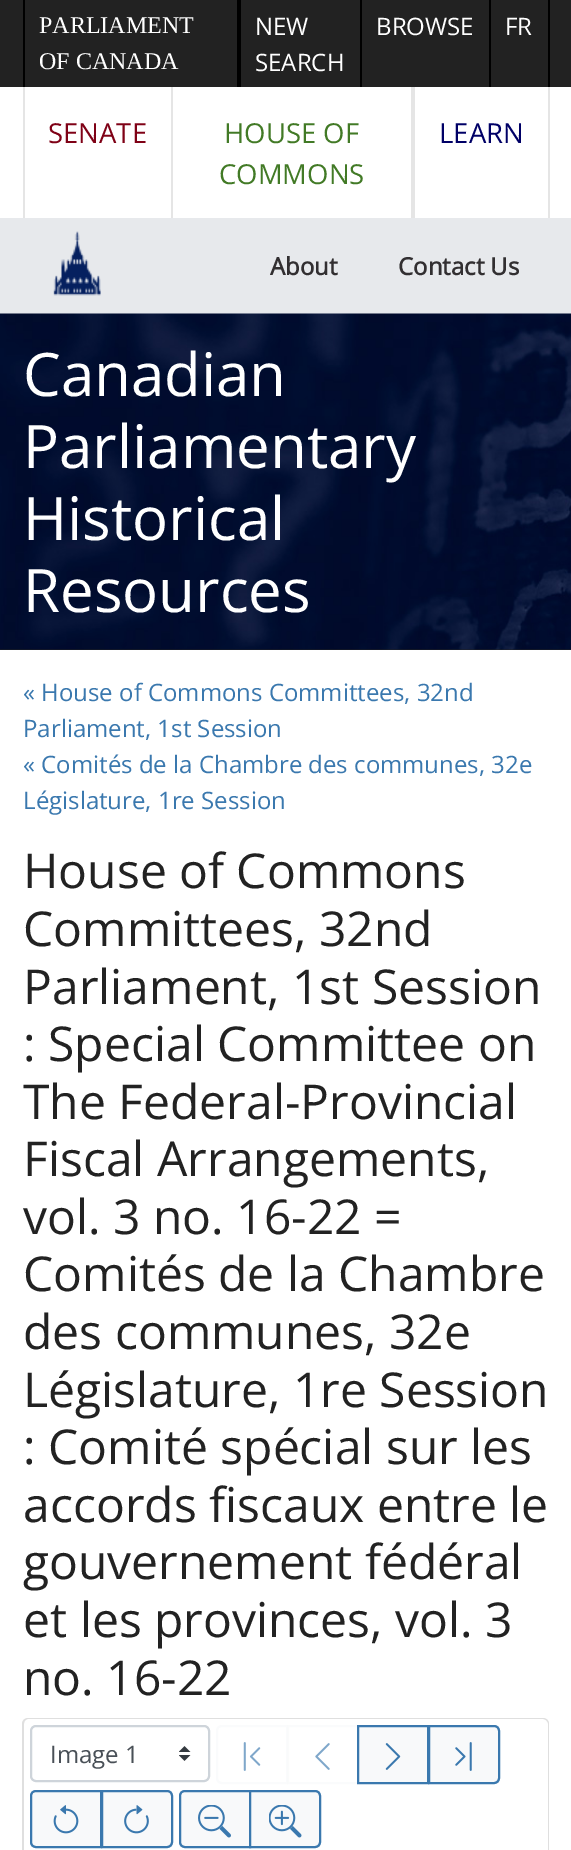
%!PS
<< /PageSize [571 1850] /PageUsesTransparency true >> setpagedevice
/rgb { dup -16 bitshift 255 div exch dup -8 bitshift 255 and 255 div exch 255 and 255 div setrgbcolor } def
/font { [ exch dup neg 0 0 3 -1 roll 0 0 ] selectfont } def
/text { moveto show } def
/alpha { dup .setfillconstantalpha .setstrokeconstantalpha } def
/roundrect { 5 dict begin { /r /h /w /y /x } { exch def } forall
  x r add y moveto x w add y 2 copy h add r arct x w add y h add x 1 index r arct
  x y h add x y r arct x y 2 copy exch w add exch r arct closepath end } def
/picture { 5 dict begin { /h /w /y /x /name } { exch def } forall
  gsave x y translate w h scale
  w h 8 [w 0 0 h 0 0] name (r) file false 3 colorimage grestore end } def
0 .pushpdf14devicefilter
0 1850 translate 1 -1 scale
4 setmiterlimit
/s1 { /LiberationSerif-Regular 24 font 16#FFFFFF rgb } def
/s2 { /OpenSans-Regular 24 font 16#FFFFFF rgb } def
/s3 { /OpenSans-Regular 27.5 font 16#7F0116 rgb } def
/s4 { /OpenSans-Regular 27.5 font 16#427A26 rgb } def
/s5 { /OpenSans-Regular 27.5 font 16#000066 rgb } def
/s6 { /OpenSans-Bold 24 font 16#322F31 rgb } def
/s7 { /OpenSans-Regular 60 font 16#FFFFFF rgb } def
/s8 { /OpenSans-Regular 24 font 16#3A78AE rgb } def
/s9 { /OpenSans-Regular 48 font 16#222222 rgb } def
/s10 { /OpenSans-Regular 24 font 16#495057 rgb } def
16#FFFFFF rgb
0 0 571 1850 rectfill
16#222222 rgb
0 0 571 650 rectfill
16#000000 rgb
237 0 4 87 rectfill
23 0 2 87 rectfill
s1
(PARLIAMENT) 39 33 text
(OF CANADA) 39 69 text
16#000000 rgb
360 0 2 87 rectfill
s2
(NEW) 255 35 text
(SEARCH) 255 71 text
16#000000 rgb
489 0 2 87 rectfill
s2
(BROWSE) 376 35 text
16#000000 rgb
548 0 2 87 rectfill
s2
(FR) 505 35 text
0 87 571 131 rectfill
16#E5E5E5 rgb
171 87 2 131 rectfill
23 87 2 131 rectfill
s3
(SENATE) 48 143 text
16#E5E5E5 rgb
411 87 4 131 rectfill
s4
(HOUSE OF) 224 143 text
(COMMONS) 219 184 text
16#E5E5E5 rgb
548 87 2 131 rectfill
s5
(LEARN) 439 143 text
16#E7E9EC rgb
0 218 571 96 rectfill
(pic1.raw) 53 231 48 65 picture
s6
(About) 270 275 text
(Contact Us) 398 275 text
(pic2.raw) 0 313 571 337 picture
s7
(Canadian) 23 396 text
(Parliamentary) 23 468 text
(Historical) 23 540 text
(Resources) 23 612 text
s8
(« House of Commons Committees, 32nd) 23 701 text
(Parliament, 1st Session) 23 737 text
(« Comités de la Chambre des communes, 32e) 23 773 text
(Législature, 1re Session) 23 809 text
s9
(House of Commons) 23 888 text
(Committees, 32nd) 23 946 text
(Parliament, 1st Session) 23 1004 text
(: Special Committee on) 23 1061 text
(The Federal-Provincial) 23 1119 text
(Fiscal Arrangements,) 23 1176 text
(vol. 3 no. 16-22 =) 23 1234 text
(Comités de la Chambre) 23 1291 text
(des communes, 32e) 23 1349 text
(Législature, 1re Session) 23 1407 text
(: Comité spécial sur les) 23 1464 text
(accords fiscaux entre le) 23 1522 text
(gouvernement fédéral) 23 1579 text
(et les provinces, vol. 3) 23 1637 text
(no. 16-22) 23 1695 text
16#DFDFDF rgb
28 1718 moveto 543 1718 lineto 546 1718 549 1720 549 1724 curveto 549 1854 lineto 22 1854 lineto 22 1724 lineto 22 1720 25 1718 28 1718 curveto closepath 28 1719 moveto 543 1719 lineto 545 1719 548 1721 548 1724 curveto 548 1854 lineto 24 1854 lineto 24 1724 lineto 24 1721 26 1719 28 1719 curveto closepath eofill
(pic3.raw) 179 1746 12 15 picture
16#CED4DA rgb
2 setlinewidth
31 1726 178 55 5 roundrect stroke
s10
(Image 1) 50 1763 text
16#FAFBFC rgb
222 1726 moveto 287 1726 lineto 287 1783 lineto 222 1783 lineto 219 1783 217 1781 217 1778 curveto 217 1731 lineto 217 1728 219 1726 222 1726 curveto closepath stroke
(pic4.raw) 243 1742 18 29 picture
0.65 alpha
16#F8F9FA rgb
288 1726 70 57 rectstroke
1 alpha
(pic5.raw) 315 1743 15 27 picture
358 1726 moveto 428 1726 lineto 428 1783 lineto 358 1783 lineto closepath gsave fill grestore
16#3A78AE rgb
stroke
(pic6.raw) 385 1743 16 27 picture
16#F8F9FA rgb
429 1726 moveto 494 1726 lineto 497 1726 499 1728 499 1731 curveto 499 1778 lineto 499 1781 497 1783 494 1783 curveto 429 1783 lineto closepath gsave fill grestore
16#3A78AE rgb
stroke
(pic7.raw) 455 1742 17 29 picture
16#F8F9FA rgb
36 1791 moveto 101 1791 lineto 101 1847 lineto 36 1847 lineto 33 1847 31 1845 31 1842 curveto 31 1796 lineto 31 1793 33 1791 36 1791 curveto closepath gsave fill grestore
16#3A78AE rgb
stroke
(pic8.raw) 53 1805 26 29 picture
16#F8F9FA rgb
102 1791 moveto 167 1791 lineto 170 1791 172 1793 172 1796 curveto 172 1842 lineto 172 1845 170 1847 167 1847 curveto 102 1847 lineto closepath gsave fill grestore
16#3A78AE rgb
stroke
(pic9.raw) 124 1805 25 29 picture
16#F8F9FA rgb
185 1791 moveto 250 1791 lineto 250 1847 lineto 185 1847 lineto 182 1847 180 1845 180 1842 curveto 180 1796 lineto 180 1793 182 1791 185 1791 curveto closepath gsave fill grestore
16#3A78AE rgb
stroke
(pic10.raw) 198 1805 33 33 picture
16#F8F9FA rgb
250 1791 moveto 315 1791 lineto 318 1791 320 1793 320 1796 curveto 320 1842 lineto 320 1845 318 1847 315 1847 curveto 250 1847 lineto closepath gsave fill grestore
16#3A78AE rgb
stroke
(pic11.raw) 269 1805 33 33 picture
.poppdf14devicefilter showpage
